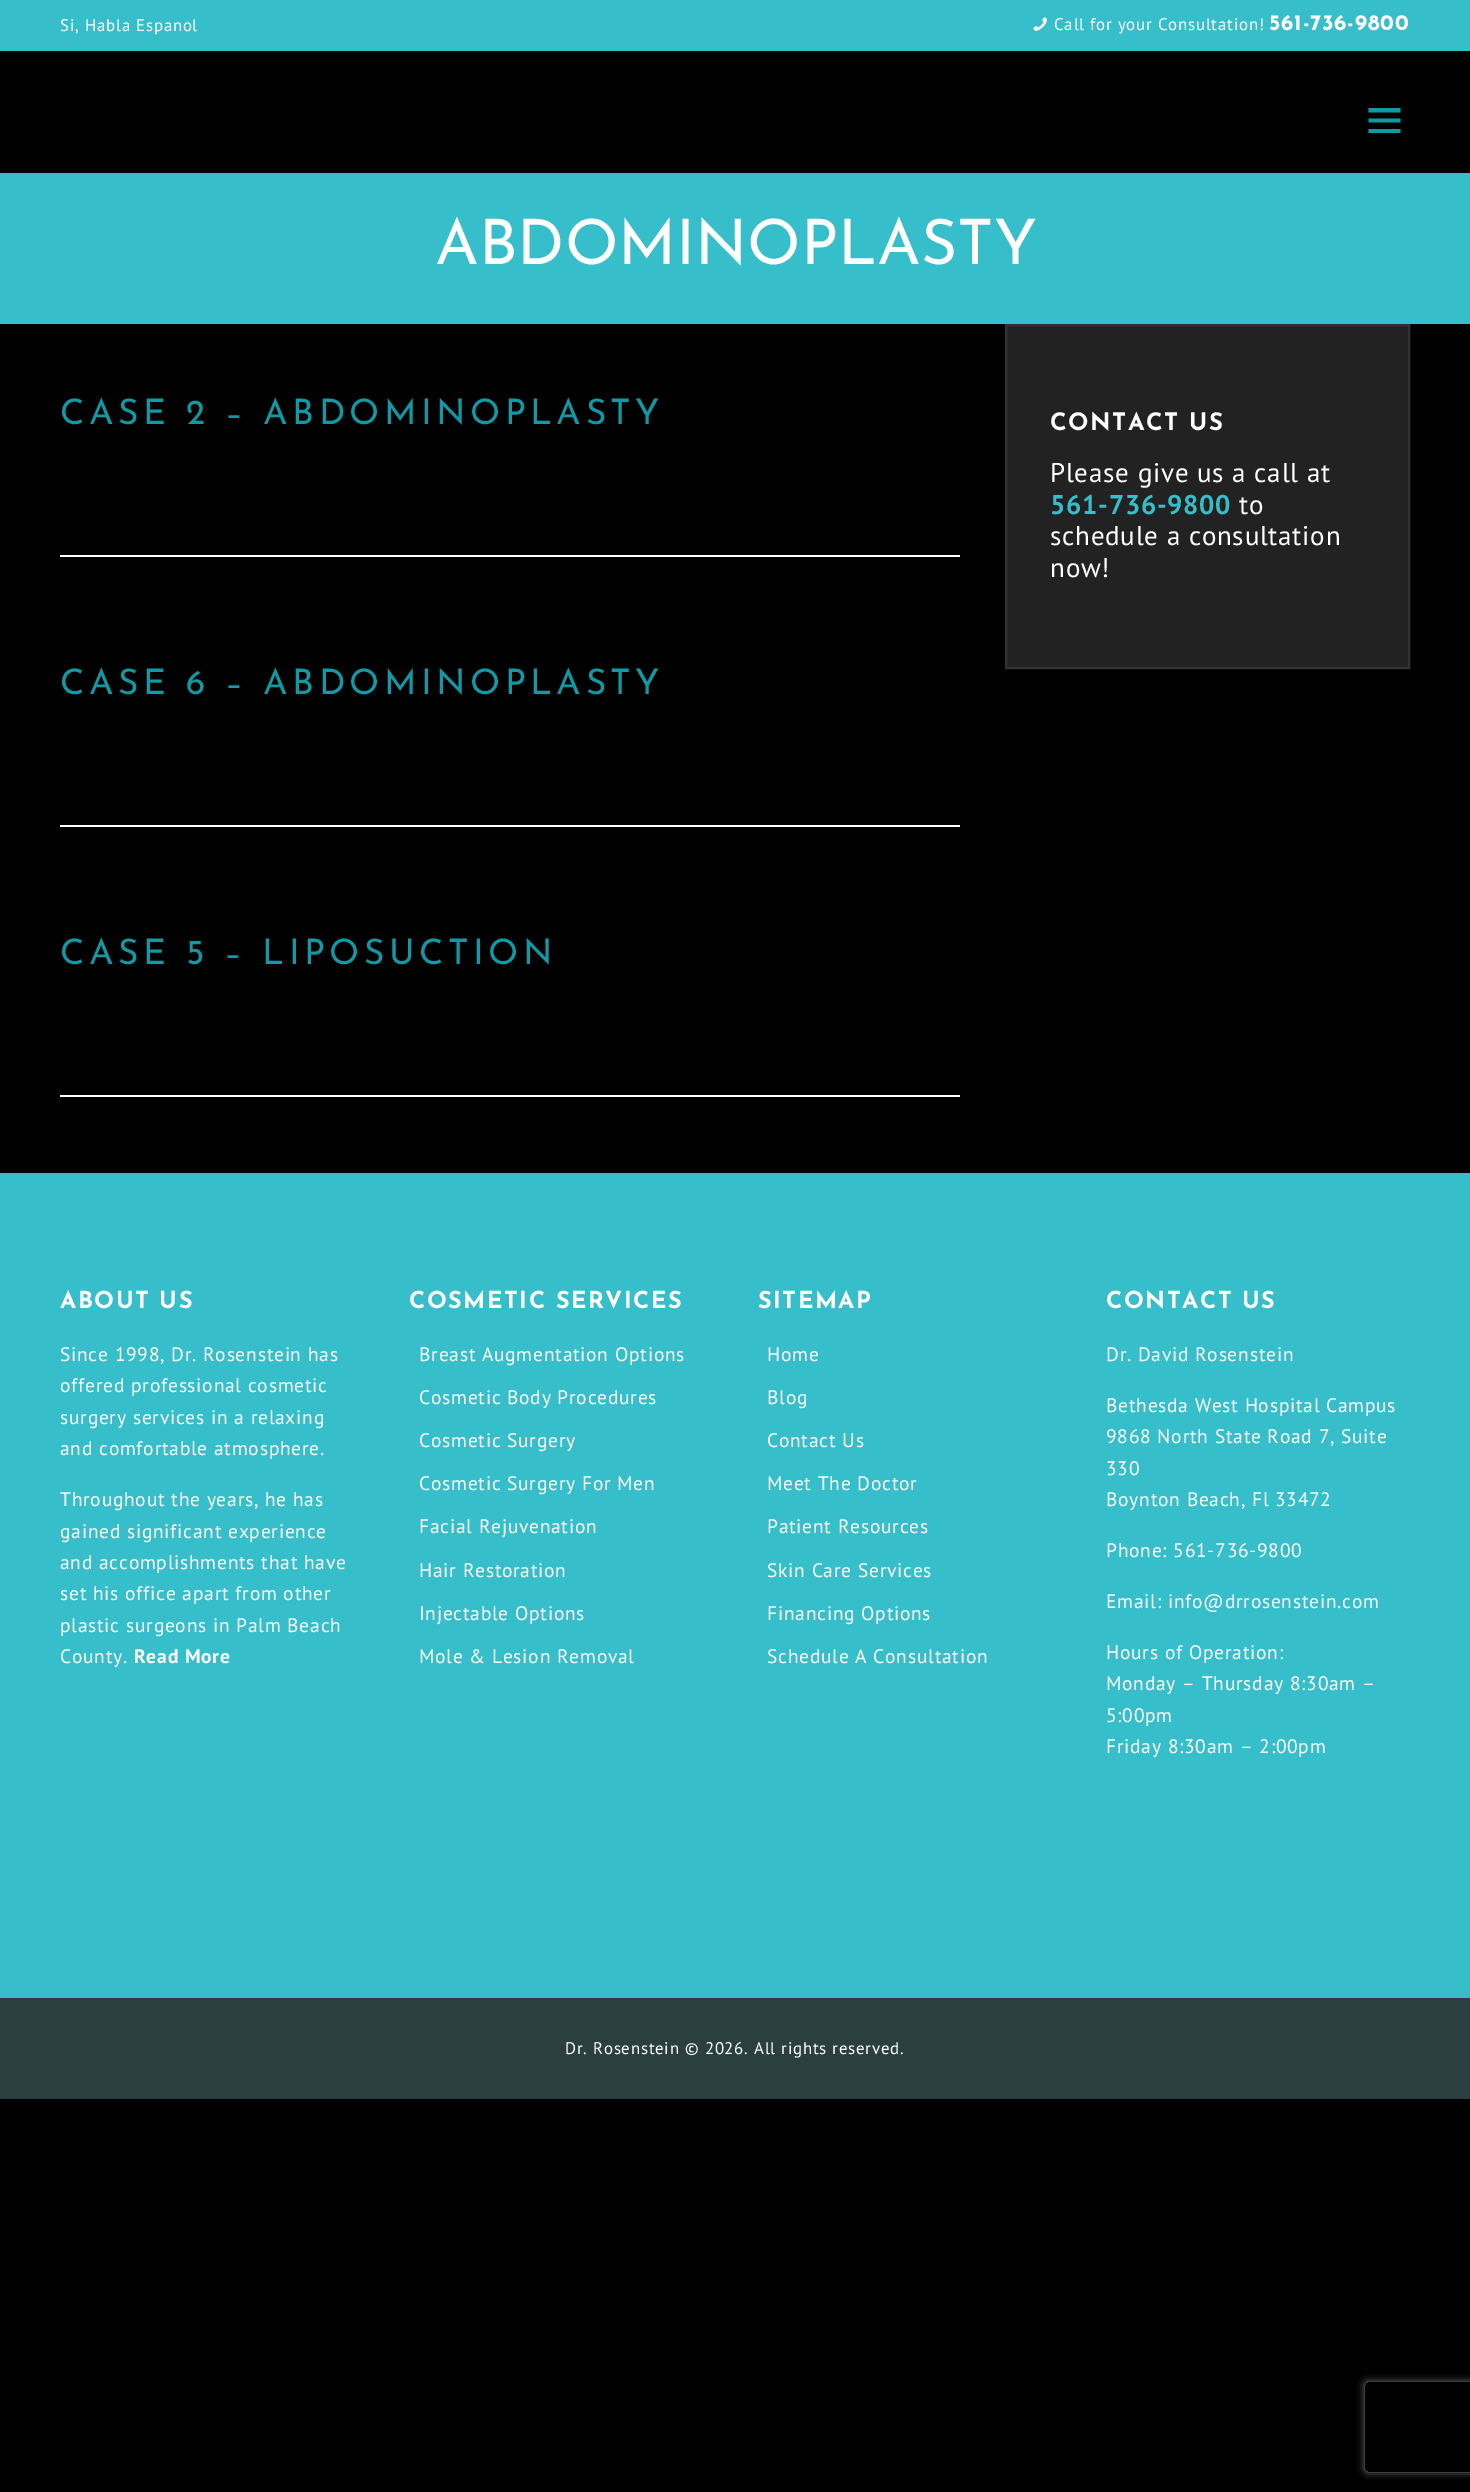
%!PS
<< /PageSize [1470 2492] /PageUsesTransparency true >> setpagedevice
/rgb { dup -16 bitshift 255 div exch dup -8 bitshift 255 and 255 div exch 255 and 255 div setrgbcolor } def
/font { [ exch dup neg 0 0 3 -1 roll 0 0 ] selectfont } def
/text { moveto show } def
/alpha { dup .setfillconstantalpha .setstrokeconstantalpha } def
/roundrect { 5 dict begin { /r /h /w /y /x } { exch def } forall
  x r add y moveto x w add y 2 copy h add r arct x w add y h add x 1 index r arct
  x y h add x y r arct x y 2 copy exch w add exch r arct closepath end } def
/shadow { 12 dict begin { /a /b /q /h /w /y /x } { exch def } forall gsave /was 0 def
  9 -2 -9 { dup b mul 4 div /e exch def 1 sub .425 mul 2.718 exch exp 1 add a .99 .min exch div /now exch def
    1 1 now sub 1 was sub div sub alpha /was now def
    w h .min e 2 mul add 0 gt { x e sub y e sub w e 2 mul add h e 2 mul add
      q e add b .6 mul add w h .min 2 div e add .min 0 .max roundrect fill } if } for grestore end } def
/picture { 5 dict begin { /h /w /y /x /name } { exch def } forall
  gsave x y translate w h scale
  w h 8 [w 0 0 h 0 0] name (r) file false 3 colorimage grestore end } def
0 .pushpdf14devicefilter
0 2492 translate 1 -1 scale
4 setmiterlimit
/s1 { /JosefinSans-Regular 62.5 font 16#FFFFFF rgb } def
16#000000 rgb
0 0 1470 2492 rectfill
16#36BECA rgb
0 0 1470 51 rectfill
/PTSans-Regular 16.9 font
16#FFFFFF rgb
60 31 moveto 0.75 0 (Si, Habla Espanol) ashow
(pic1.raw) 1033 17 14 14 picture
1054 30 moveto 0.75 0 (Call for your Consultation!) ashow
/JosefinSans-Bold 22 font
1269 30 moveto 0.75 0 (561-736-9800) ashow
16#1199A5 rgb
1368.5 133 moveto 1400.5 133 lineto 1400.5 129 lineto 1368.5 129 lineto closepath 1368.5 122.5 moveto 1400.5 122.5 lineto 1400.5 118.5 lineto 1368.5 118.5 lineto closepath 1368.5 108 moveto 1368.5 112.5 lineto 1400.5 112.5 lineto 1400.5 108 lineto closepath fill
16#36BECA rgb
0 173 1470 151 rectfill
s1
(ABDOMINOPLASTY) 435 264 text
60 555 900 2 rectfill
/JosefinSans-Regular 35.1 font
16#1199A5 rgb
60 424 moveto 4.5 0 (CASE 2 – ABDOMINOPLASTY) ashow
16#FFFFFF rgb
60 825 900 2 rectfill
16#1199A5 rgb
60 694 moveto 4.5 0 (CASE 6 – ABDOMINOPLASTY) ashow
16#FFFFFF rgb
60 1095 900 2 rectfill
16#1199A5 rgb
60 964 moveto 4.5 0 (CASE 5 – LIPOSUCTION) ashow
16#222222 rgb
1006 325 moveto 1409 325 lineto 1409 668 lineto 1006 668 lineto closepath gsave fill grestore
16#333333 rgb
2 setlinewidth
stroke
/JosefinSans-Bold 24 font
16#FFFFFF rgb
1050 430 moveto 1.5 0 (CONTACT US) ashow
/PTSans-Regular 27 font
1050 482 moveto 0.75 0 (Please give us a call at) ashow
/PTSans-Bold 27 font
16#36BECA rgb
1050 514 moveto 0.75 0 (561-736-9800) ashow
/PTSans-Regular 27 font
16#FFFFFF rgb
1239 514 moveto 0.75 0 (to) ashow
1050 545 moveto 0.75 0 (schedule a consultation) ashow
1050 577 moveto 0.75 0 (now!) ashow
16#36BECA rgb
0 1173 1470 825 rectfill
/JosefinSans-Bold 23.4 font
16#FFFFFF rgb
60 1308 moveto 1.5 0 (ABOUT US) ashow
/PTSans-Regular 19.5 font
60 1361 moveto 0.75 0 (Since 1998, Dr. Rosenstein has) ashow
60 1392 moveto 0.75 0 (offered professional cosmetic) ashow
60 1424 moveto 0.75 0 (surgery services in a relaxing) ashow
60 1455 moveto 0.75 0 (and comfortable atmosphere.) ashow
60 1506 moveto 0.75 0 (Throughout the years, he has) ashow
60 1538 moveto 0.75 0 (gained significant experience) ashow
60 1569 moveto 0.75 0 (and accomplishments that have) ashow
60 1600 moveto 0.75 0 (set his office apart from other) ashow
60 1632 moveto 0.75 0 (plastic surgeons in Palm Beach) ashow
60 1663 moveto 0.75 0 (County.) ashow
/PTSans-Bold 19.5 font
134 1663 moveto 0.75 0 (Read More) ashow
/JosefinSans-Bold 23.4 font
409 1308 moveto 1.5 0 (COSMETIC SERVICES) ashow
/PTSans-Regular 19.5 font
419 1361 moveto 0.75 0 (Breast Augmentation Options) ashow
419 1404 moveto 0.75 0 (Cosmetic Body Procedures) ashow
419 1447 moveto 0.75 0 (Cosmetic Surgery) ashow
419 1490 moveto 0.75 0 (Cosmetic Surgery For Men) ashow
419 1533 moveto 0.75 0 (Facial Rejuvenation) ashow
419 1577 moveto 0.75 0 (Hair Restoration) ashow
419 1620 moveto 0.75 0 (Injectable Options) ashow
419 1663 moveto 0.75 0 (Mole & Lesion Removal) ashow
/JosefinSans-Bold 23.4 font
758 1308 moveto 1.5 0 (SITEMAP) ashow
/PTSans-Regular 19.5 font
767 1361 moveto 0.75 0 (Home) ashow
767 1404 moveto 0.75 0 (Blog) ashow
767 1447 moveto 0.75 0 (Contact Us) ashow
767 1490 moveto 0.75 0 (Meet The Doctor) ashow
767 1533 moveto 0.75 0 (Patient Resources) ashow
767 1577 moveto 0.75 0 (Skin Care Services) ashow
767 1620 moveto 0.75 0 (Financing Options) ashow
767 1663 moveto 0.75 0 (Schedule A Consultation) ashow
/JosefinSans-Bold 23.4 font
1106 1308 moveto 1.5 0 (CONTACT US) ashow
/PTSans-Regular 19.5 font
1106 1361 moveto 0.75 0 (Dr. David Rosenstein) ashow
1106 1412 moveto 0.75 0 (Bethesda West Hospital Campus) ashow
1106 1443 moveto 0.75 0 (9868 North State Road 7, Suite) ashow
1106 1475 moveto 0.75 0 (330) ashow
1106 1506 moveto 0.75 0 (Boynton Beach, Fl 33472) ashow
1106 1557 moveto 0.75 0 (Phone: 561-736-9800) ashow
1106 1608 moveto 0.75 0 (Email: info@drrosenstein.com) ashow
1106 1659 moveto 0.75 0 (Hours of Operation:) ashow
1106 1690 moveto 0.75 0 (Monday – Thursday 8:30am –) ashow
1106 1722 moveto 0.75 0 (5:00pm) ashow
1106 1753 moveto 0.75 0 (Friday 8:30am – 2:00pm) ashow
16#2B3E40 rgb
0 1998 1470 101 rectfill
/PTSans-Regular 16.9 font
16#FFFFFF rgb
565 2054 moveto 0.75 0 (Dr. Rosenstein © 2026. All rights reserved.) ashow
gsave
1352 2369 moveto 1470 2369 lineto 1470 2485 lineto 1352 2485 lineto closepath 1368 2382 moveto 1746 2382 lineto 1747.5 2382 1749 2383.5 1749 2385 curveto 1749 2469 lineto 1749 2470.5 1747.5 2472 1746 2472 curveto 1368 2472 lineto 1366.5 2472 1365 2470.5 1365 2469 curveto 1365 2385 lineto 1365 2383.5 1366.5 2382 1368 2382 curveto closepath eoclip newpath
16#808080 rgb
1365 2382 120 90 3 4 1 shadow
grestore
.poppdf14devicefilter showpage
